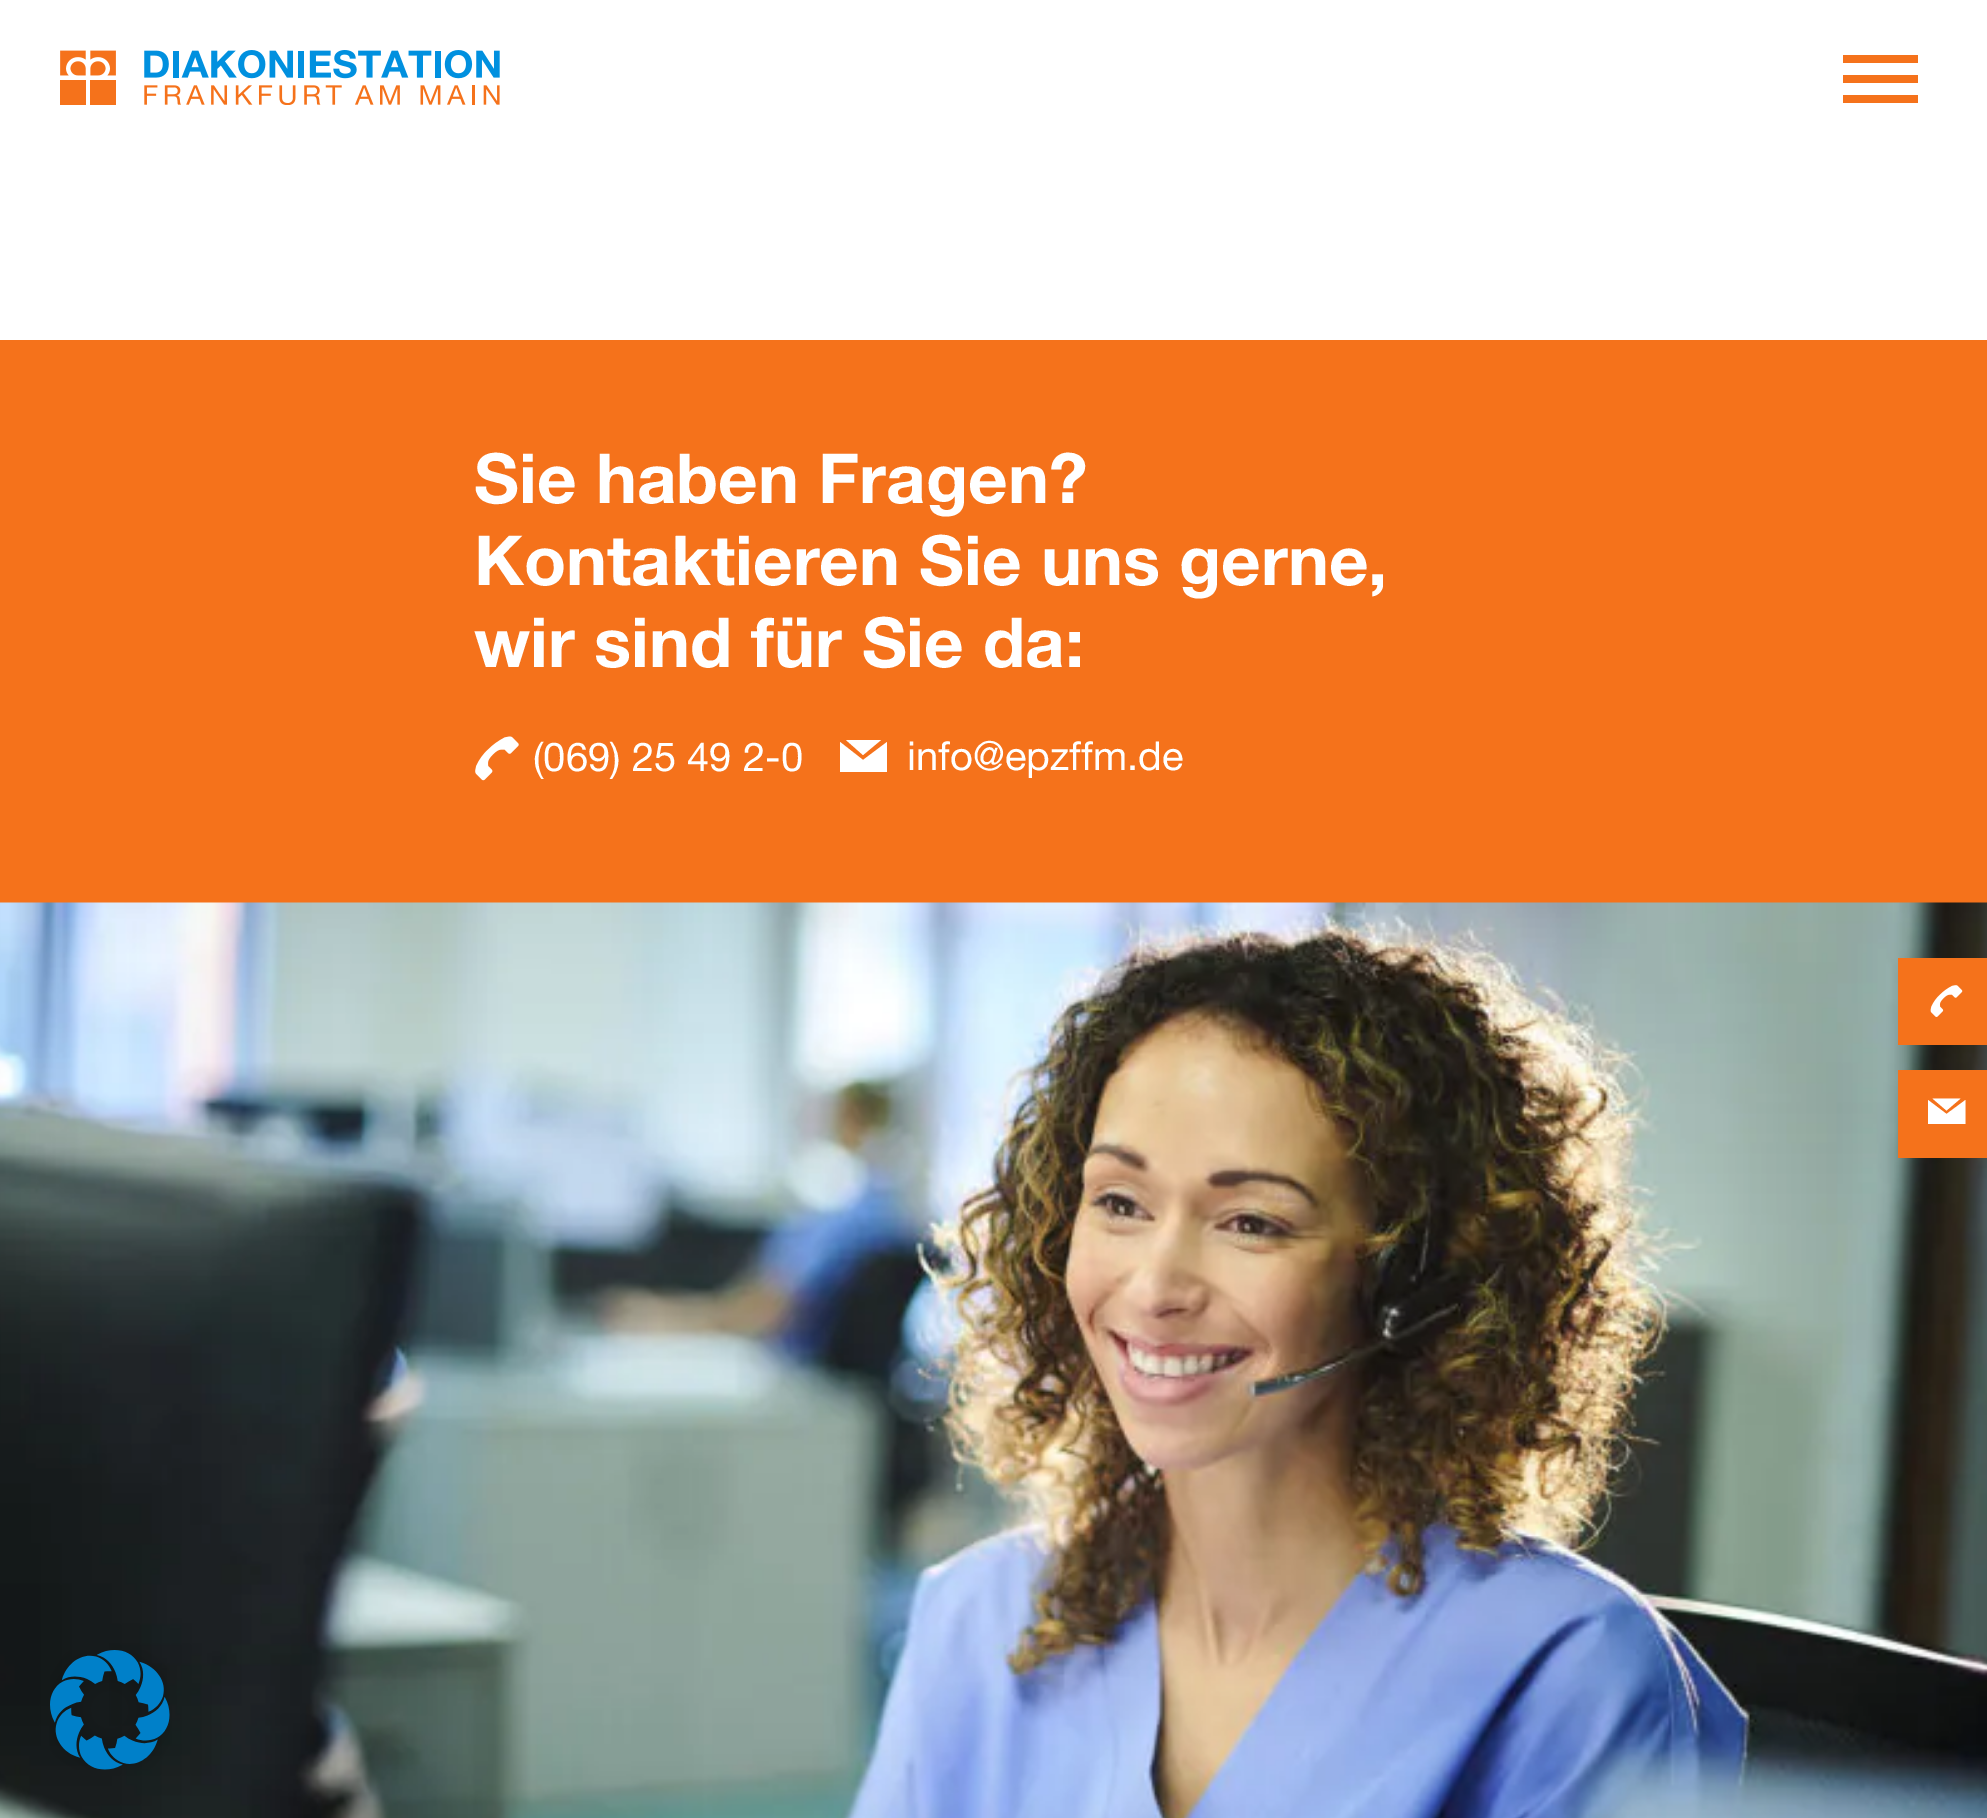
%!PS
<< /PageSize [1987 1818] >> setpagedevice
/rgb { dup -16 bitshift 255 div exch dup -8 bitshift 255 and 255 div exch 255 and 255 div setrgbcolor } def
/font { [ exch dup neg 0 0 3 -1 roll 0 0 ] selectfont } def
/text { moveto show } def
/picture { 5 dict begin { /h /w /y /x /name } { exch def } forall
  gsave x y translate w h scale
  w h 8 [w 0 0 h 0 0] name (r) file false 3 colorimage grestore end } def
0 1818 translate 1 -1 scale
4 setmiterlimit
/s1 { /HelveticaNeue-Bold 69.1 font 16#FFFFFF rgb } def
/s2 { /HelveticaNeue-Regular 40 font 16#FFFFFF rgb } def
16#FFFFFF rgb
0 0 1987 1818 rectfill
(pic1.raw) 60 50 440 55 picture
16#F5721B rgb
1843 55 75 8 rectfill
1843 75 75 8 rectfill
1843 95 75 8 rectfill
0 340 1987 563 rectfill
s1
(Sie haben Fragen?) 474 503 text
(Kontaktieren Sie uns gerne,) 474 585 text
(wir sind für Sie da:) 474 667 text
(pic2.raw) 475 736 44 45 picture
s2
(\(069\) 25 49 2-0) 533 771 text
863 760 moveto 840 742 lineto 840 772 lineto 887 772 lineto 887 742 lineto closepath 881 740 moveto 846 740 lineto 863 755 lineto closepath fill
(info@epzffm.de) 907 770 text
(pic3.raw) 0 902 1987 916 picture
16#F5721B rgb
1898 958 89 87 rectfill
(pic4.raw) 1930 985 33 32 picture
1898 1070 89 88 rectfill
16#FFFFFF rgb
1946.5 1114 moveto 1928 1100 lineto 1928 1124 lineto 1965.5 1124 lineto 1965.5 1100 lineto closepath 1960.5 1098.5 moveto 1932.5 1098.5 lineto 1946.5 1110.5 lineto closepath fill
(pic5.raw) 50 1650 120 120 picture
showpage
